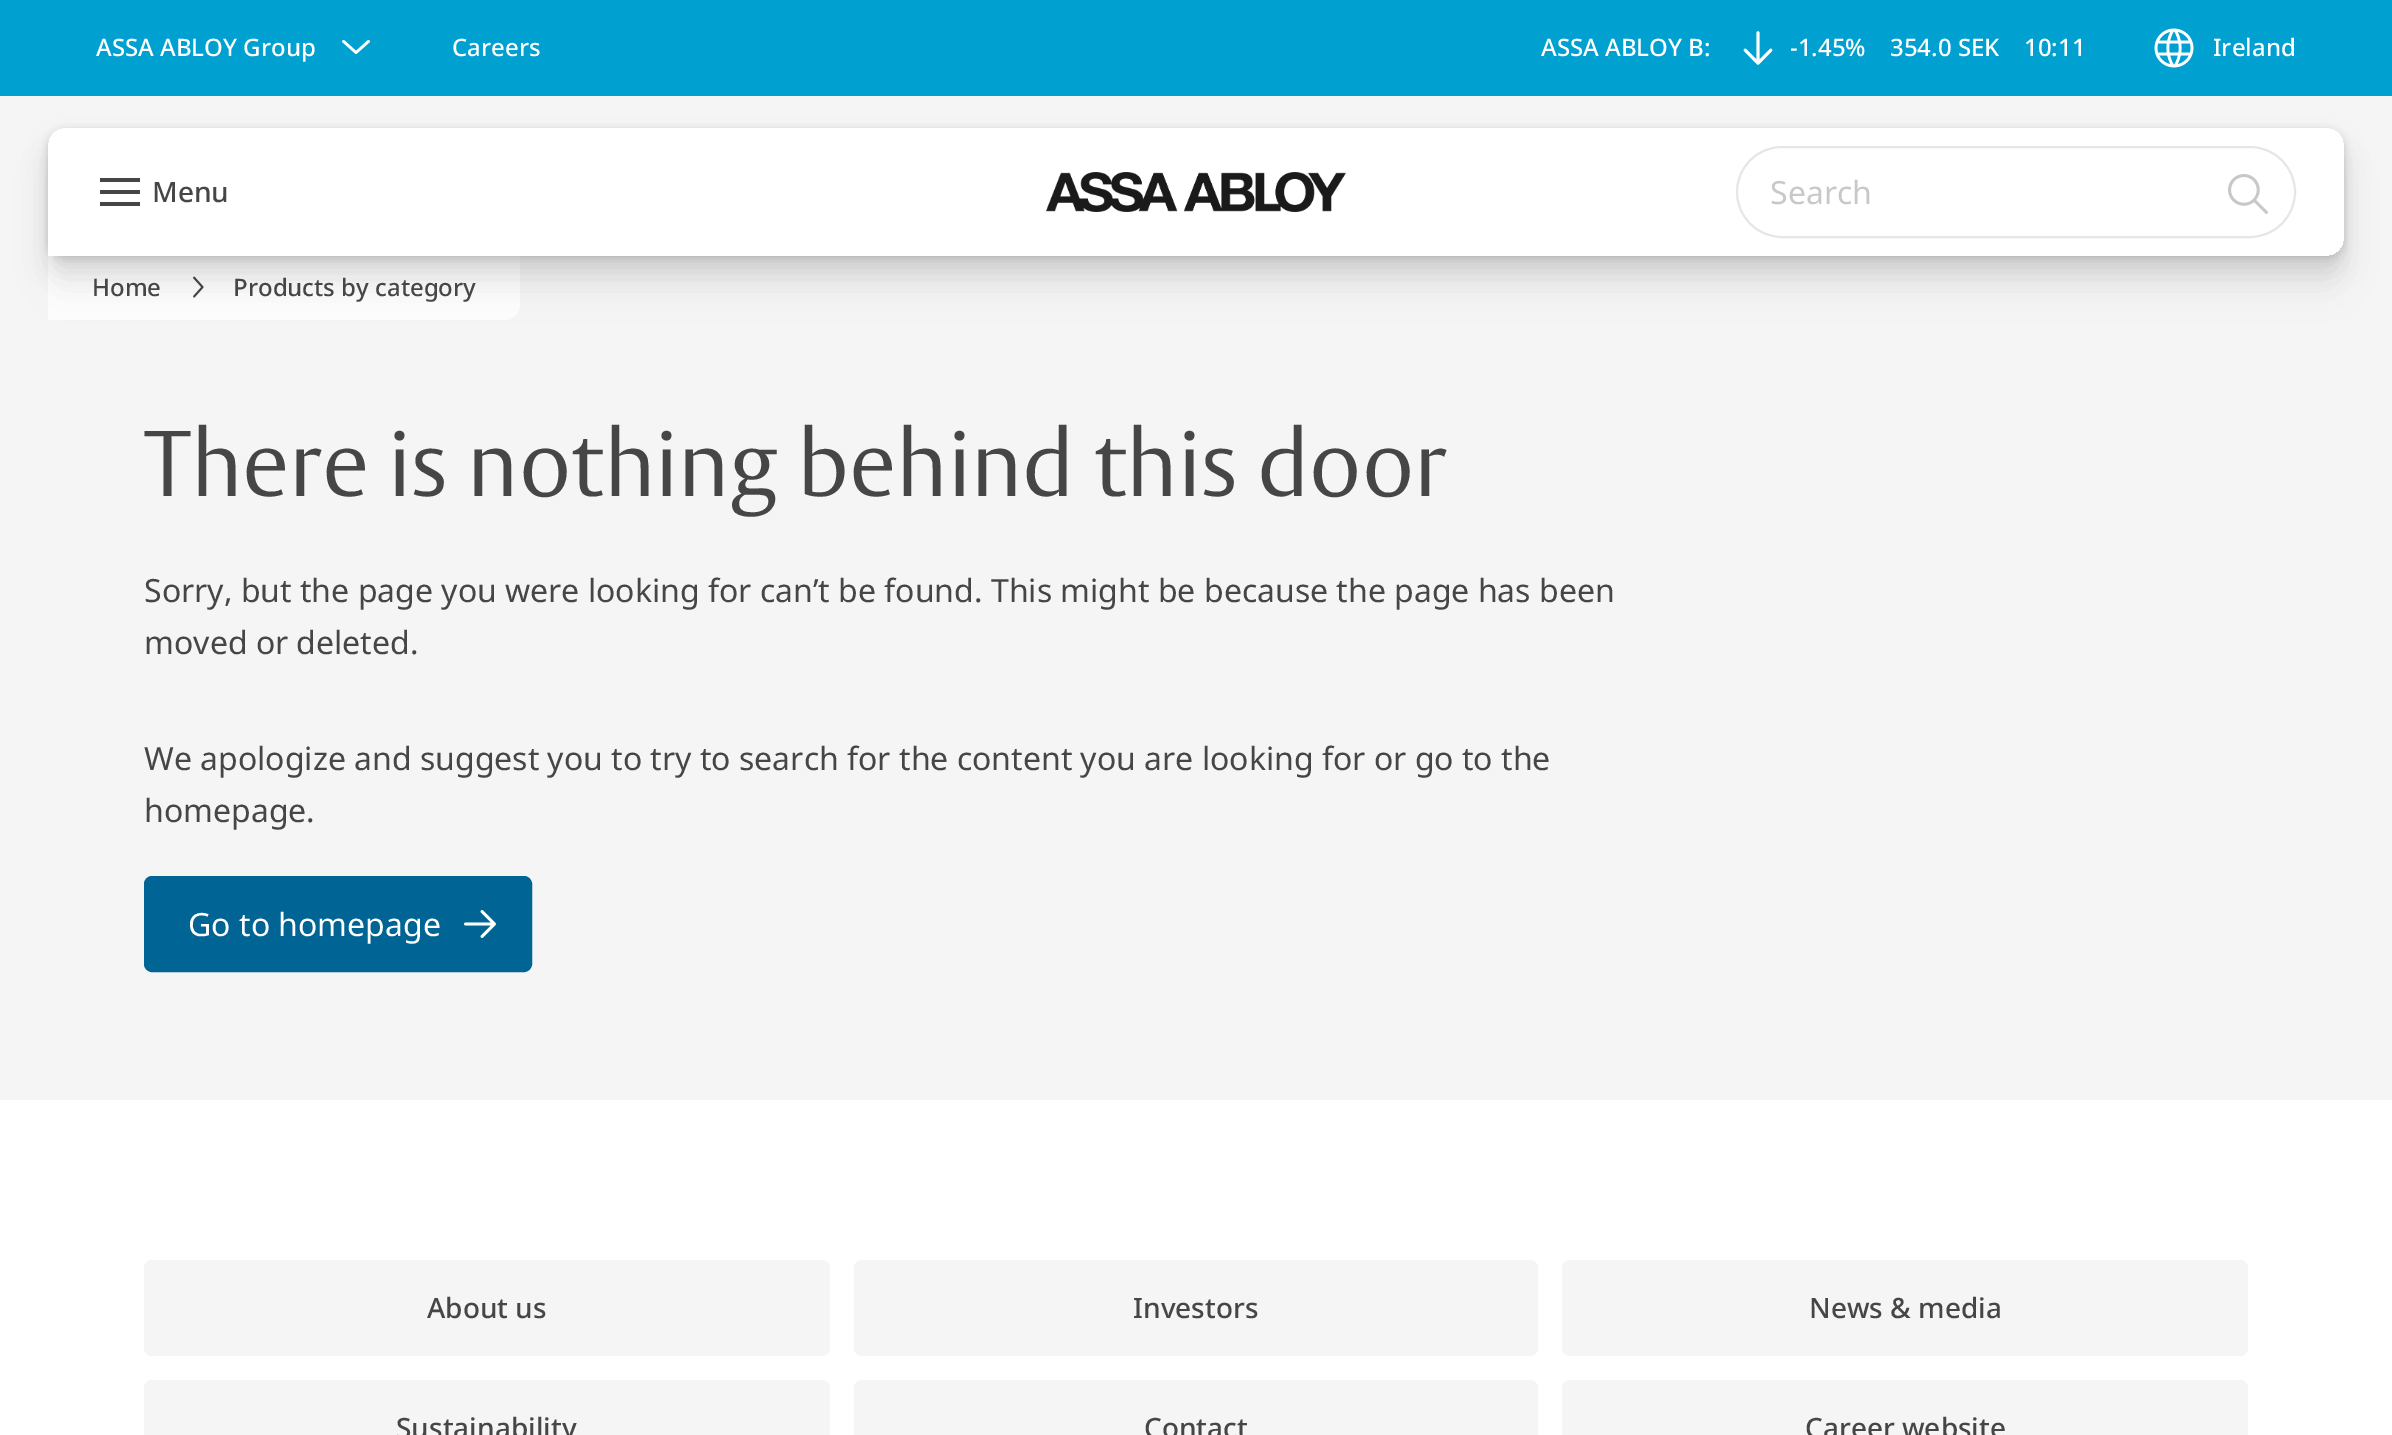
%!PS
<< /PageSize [2392 1435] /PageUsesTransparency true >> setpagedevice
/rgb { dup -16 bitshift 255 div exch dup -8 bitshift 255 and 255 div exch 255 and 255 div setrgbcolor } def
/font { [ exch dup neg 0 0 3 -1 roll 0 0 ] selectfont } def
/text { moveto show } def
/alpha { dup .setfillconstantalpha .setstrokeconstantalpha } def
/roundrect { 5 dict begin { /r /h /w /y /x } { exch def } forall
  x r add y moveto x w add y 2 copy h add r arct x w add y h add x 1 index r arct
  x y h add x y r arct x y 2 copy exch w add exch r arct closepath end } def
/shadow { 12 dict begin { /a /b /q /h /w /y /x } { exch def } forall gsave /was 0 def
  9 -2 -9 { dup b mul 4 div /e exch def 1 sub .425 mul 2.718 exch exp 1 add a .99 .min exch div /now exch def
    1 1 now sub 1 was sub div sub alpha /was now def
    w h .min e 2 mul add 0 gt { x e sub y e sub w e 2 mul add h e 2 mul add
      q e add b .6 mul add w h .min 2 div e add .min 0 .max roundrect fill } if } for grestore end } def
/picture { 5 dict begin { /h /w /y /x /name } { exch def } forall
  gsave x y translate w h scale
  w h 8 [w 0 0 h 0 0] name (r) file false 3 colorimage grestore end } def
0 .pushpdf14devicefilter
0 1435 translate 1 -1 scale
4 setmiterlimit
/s1 { /NotoSans-Medium 24 font 16#FFFFFF rgb } def
/s2 { /NotoSans-Medium 28 font 16#464646 rgb } def
/s3 { /NotoSans-Regular 32 font 16#C8C8C8 rgb } def
/s4 { /NotoSans-Medium 24 font 16#464646 rgb } def
/s5 { /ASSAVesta-Light 92 font 16#464646 rgb } def
/s6 { /NotoSans-Regular 32 font 16#464646 rgb } def
/s7 { /NotoSans-Regular 32 font 16#FFFFFF rgb } def
16#FFFFFF rgb
0 0 2392 1435 rectfill
16#00A0D0 rgb
0 0 2392 96 rectfill
s1
(ASSA ABLOY Group) 96 56 text
(pic1.raw) 342 40 28 14 picture
(Careers) 452 56 text
(ASSA ABLOY B:) 1541 56 text
(pic2.raw) 1743 31 30 34 picture
(-1.45%) 1790 56 text
(354.0 SEK) 1890 56 text
(10:11) 2024 56 text
(pic3.raw) 2154 28 40 40 picture
(Ireland) 2213 56 text
16#F5F5F5 rgb
0 96 2392 1004 rectfill
16#FFFFFF rgb
64 128 moveto 2328 128 lineto 2337 128 2344 135 2344 144 curveto 2344 240 lineto 2344 249 2337 256 2328 256 curveto 48 256 lineto 48 144 lineto 48 135 55 128 64 128 curveto closepath fill
16#464646 rgb
100 178 40 4 rectfill
100 190 40 4 rectfill
100 202 40 4 rectfill
(pic4.raw) 1046 172 300 40 picture
16#FDFDFD rgb
48 256 moveto 520 256 lineto 520 304 lineto 520 313 513 320 504 320 curveto 48 320 lineto closepath fill
gsave
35 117 moveto 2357 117 lineto 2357 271 lineto 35 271 lineto closepath 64 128 moveto 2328 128 lineto 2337 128 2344 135 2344 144 curveto 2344 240 lineto 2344 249 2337 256 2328 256 curveto 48 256 lineto 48 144 lineto 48 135 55 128 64 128 curveto closepath eoclip newpath
16#000000 rgb
48 130 2296 128 16 4 0.15 shadow
grestore
(pic6.raw) 193 276 11 22 picture
gsave
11 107 moveto 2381 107 lineto 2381 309 lineto 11 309 lineto closepath 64 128 moveto 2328 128 lineto 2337 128 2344 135 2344 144 curveto 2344 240 lineto 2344 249 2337 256 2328 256 curveto 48 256 lineto 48 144 lineto 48 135 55 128 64 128 curveto closepath eoclip newpath
16#000000 rgb
48 144 2296 128 16 12 0.1 shadow
grestore
gsave
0 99 moveto 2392 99 lineto 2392 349 lineto 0 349 lineto closepath 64 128 moveto 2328 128 lineto 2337 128 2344 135 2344 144 curveto 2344 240 lineto 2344 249 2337 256 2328 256 curveto 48 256 lineto 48 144 lineto 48 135 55 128 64 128 curveto closepath eoclip newpath
16#000000 rgb
48 160 2296 128 16 20 0.05 shadow
grestore
s2
(Menu) 152 202 text
16#E6E6E6 rgb
2 setlinewidth
1737 147 558 90 45 roundrect stroke
s3
(Search) 1770 204 text
(pic5.raw) 2228 174 40 40 picture
s4
(Home) 92 296 text
(Products by category) 233 296 text
s5
(There is nothing behind this door) 144 496 text
s6
(Sorry, but the page you were looking for can’t be found. This might be because the page has been) 144 602 text
(moved or deleted.) 144 654 text
(We apologize and suggest you to try to search for the content you are looking for or go to the) 144 770 text
(homepage.) 144 822 text
16#006495 rgb
146 878 384 92 6 roundrect gsave fill grestore
4 setlinewidth
stroke
s7
(Go to homepage) 188 936 text
(pic7.raw) 464 910 32 28 picture
16#F5F5F5 rgb
144 1260 686 96 8 roundrect fill
s2
(About us) 427 1318 text
16#F5F5F5 rgb
854 1260 684 96 8 roundrect fill
s2
(Investors) 1133 1318 text
16#F5F5F5 rgb
1562 1260 686 96 8 roundrect fill
s2
(News & media) 1809 1318 text
16#F5F5F5 rgb
144 1380 686 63 8 roundrect fill
s2
(Sustainability) 396 1438 text
16#F5F5F5 rgb
854 1380 684 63 8 roundrect fill
s2
(Contact) 1144 1438 text
16#F5F5F5 rgb
1562 1380 686 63 8 roundrect fill
s2
(Career website) 1805 1438 text
.poppdf14devicefilter showpage
